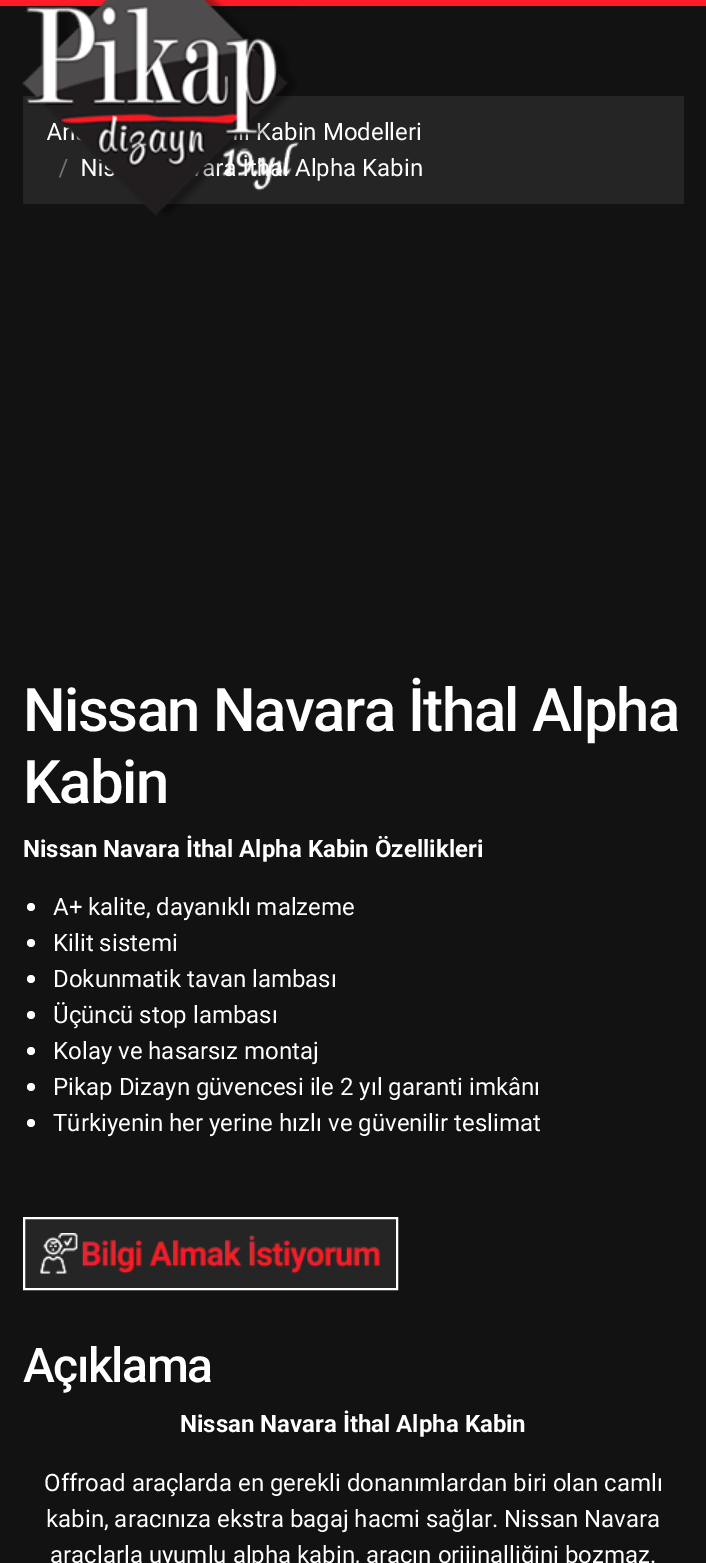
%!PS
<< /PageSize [706 1563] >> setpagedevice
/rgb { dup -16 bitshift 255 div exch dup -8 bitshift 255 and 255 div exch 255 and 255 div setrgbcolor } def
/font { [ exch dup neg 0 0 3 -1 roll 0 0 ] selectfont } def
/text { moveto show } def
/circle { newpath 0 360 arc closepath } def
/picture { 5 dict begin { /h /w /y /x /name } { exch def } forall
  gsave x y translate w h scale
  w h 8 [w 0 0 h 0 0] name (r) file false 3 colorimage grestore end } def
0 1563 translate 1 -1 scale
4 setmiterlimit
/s1 { /Roboto-Regular 24 font 16#FFFFFF rgb } def
/s2 { /Roboto-Regular 24 font 16#6C757D rgb } def
/s3 { /Roboto-Bold 24 font 16#FFFFFF rgb } def
16#121212 rgb
0 0 706 1563 rectfill
16#FF1C24 rgb
0 0 706 6 rectfill
16#252525 rgb
23 96 661 108 rectfill
s1
(An) 47 140 text
(Kabin Modelleri) 256 140 text
s2
(/) 59 176 text
s1
(N) 80 176 text
(r) 215 176 text
(Alpha Kabin) 295 176 text
(pic1.raw) 22 0 277 216 picture
/Roboto-Medium 60 font
23 731 moveto -1.5 0 (Nissan Navara İthal Alpha) ashow
23 803 moveto -1.5 0 (Kabin) ashow
s3
(Nissan Navara İthal Alpha Kabin Özellikleri) 23 857 text
31 907 4 circle fill
s1
(A+ kalite, dayanıklı malzeme) 53 915 text
31 943 4 circle fill
(Kilit sistemi) 53 951 text
31 979 4 circle fill
(Dokunmatik tavan lambası) 53 987 text
31 1015 4 circle fill
(Üçüncü stop lambası) 53 1023 text
31 1051 4 circle fill
(Kolay ve hasarsız montaj) 53 1059 text
31 1087 4 circle fill
(Pikap Dizayn güvencesi ile 2 yıl garanti imkânı) 53 1095 text
31 1123 4 circle fill
(Türkiyenin her yerine hızlı ve güvenilir teslimat) 53 1131 text
16#252525 rgb
24 1218 moveto 397 1218 lineto 397 1289 lineto 24 1289 lineto closepath gsave fill grestore
16#FFFFFF rgb
2 setlinewidth
stroke
(pic2.raw) 40 1233 340 41 picture
/Roboto-Medium 48 font
23 1382 moveto -1.5 0 (Açıklama) ashow
s3
(Nissan Navara İthal Alpha Kabin) 180 1432 text
s1
(Offroad araçlarda en gerekli donanımlardan biri olan camlı) 44 1491 text
(kabin, aracınıza ekstra bagaj hacmi sağlar. Nissan Navara) 46 1527 text
(araçlarla uyumlu alpha kabin, aracın orijinalliğini bozmaz.) 50 1563 text
showpage
